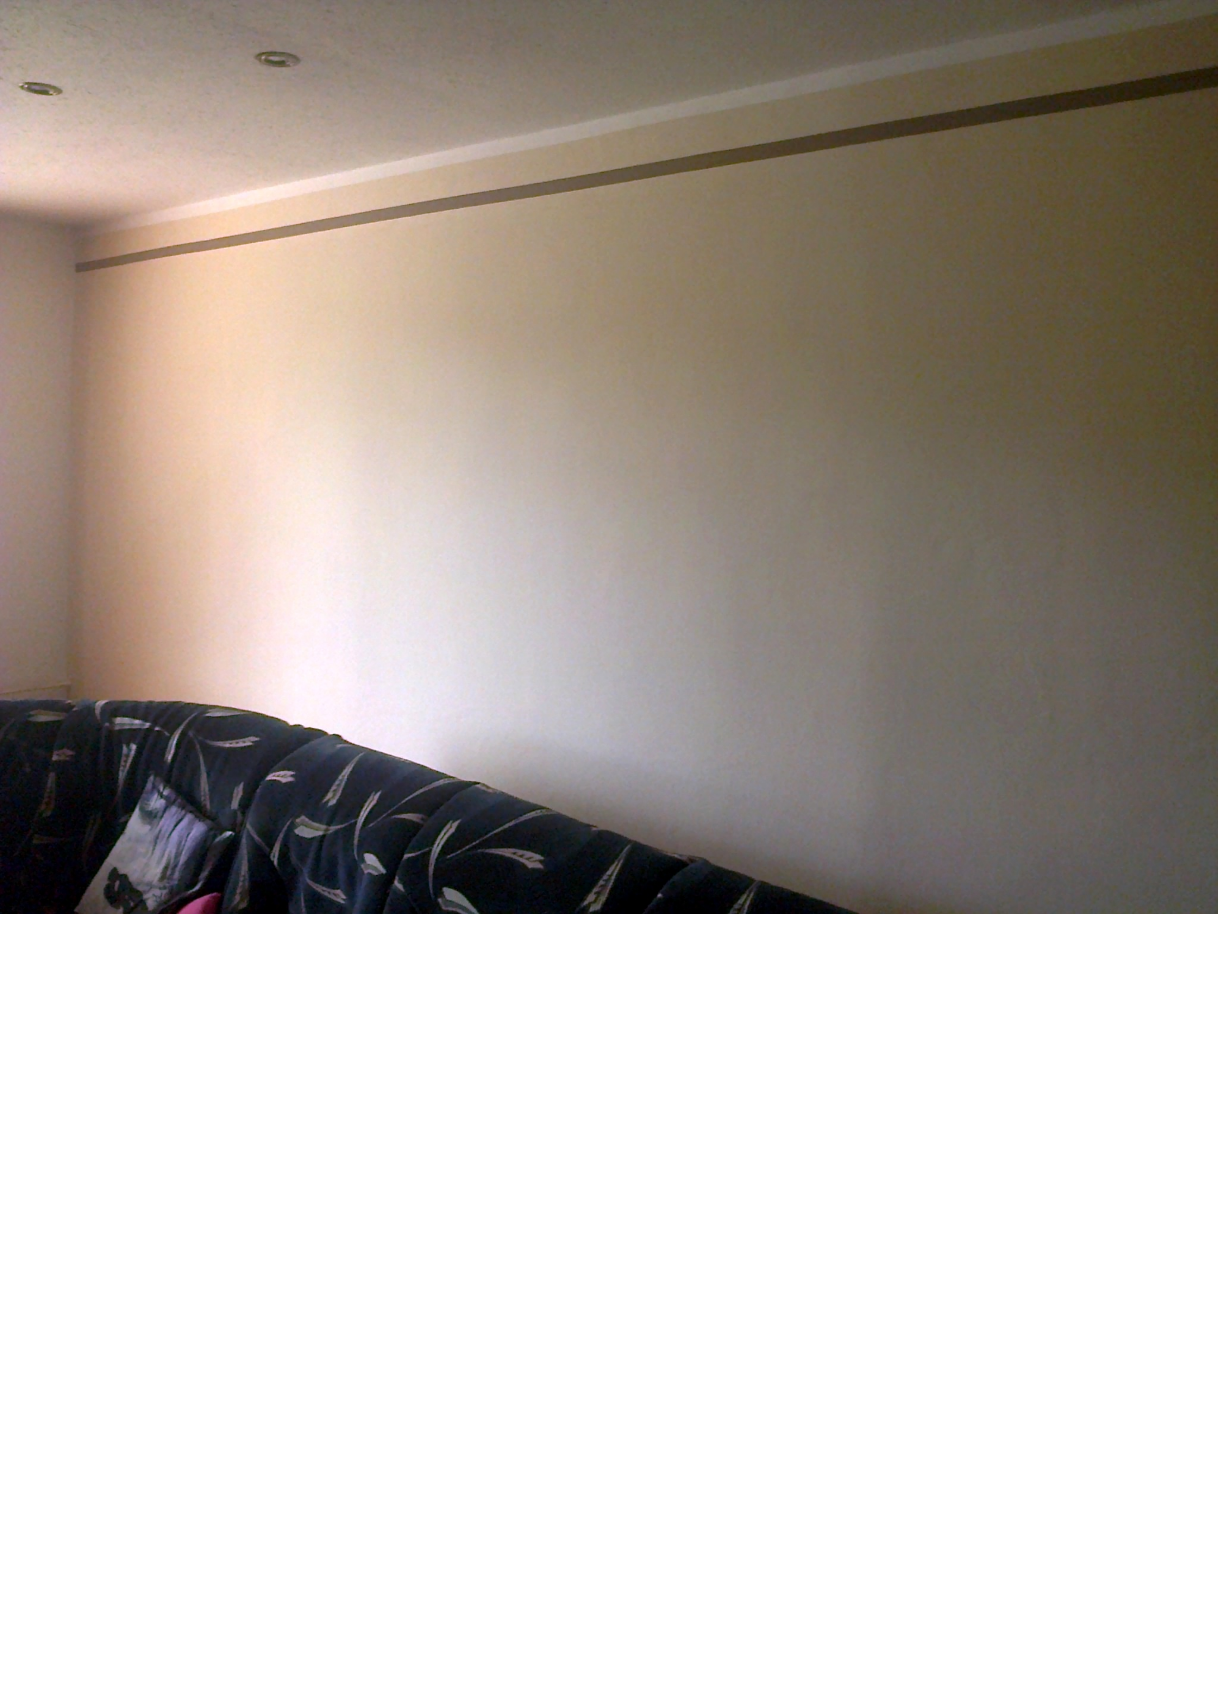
%!PS
<< /PageSize [1218 1683] >> setpagedevice
/rgb { dup -16 bitshift 255 div exch dup -8 bitshift 255 and 255 div exch 255 and 255 div setrgbcolor } def
/picture { 5 dict begin { /h /w /y /x /name } { exch def } forall
  gsave x y translate w h scale
  w h 8 [w 0 0 h 0 0] name (r) file false 3 colorimage grestore end } def
0 1683 translate 1 -1 scale
4 setmiterlimit
16#FFFFFF rgb
0 0 1218 1683 rectfill
(pic1.raw) 0 0 1218 914 picture
showpage
